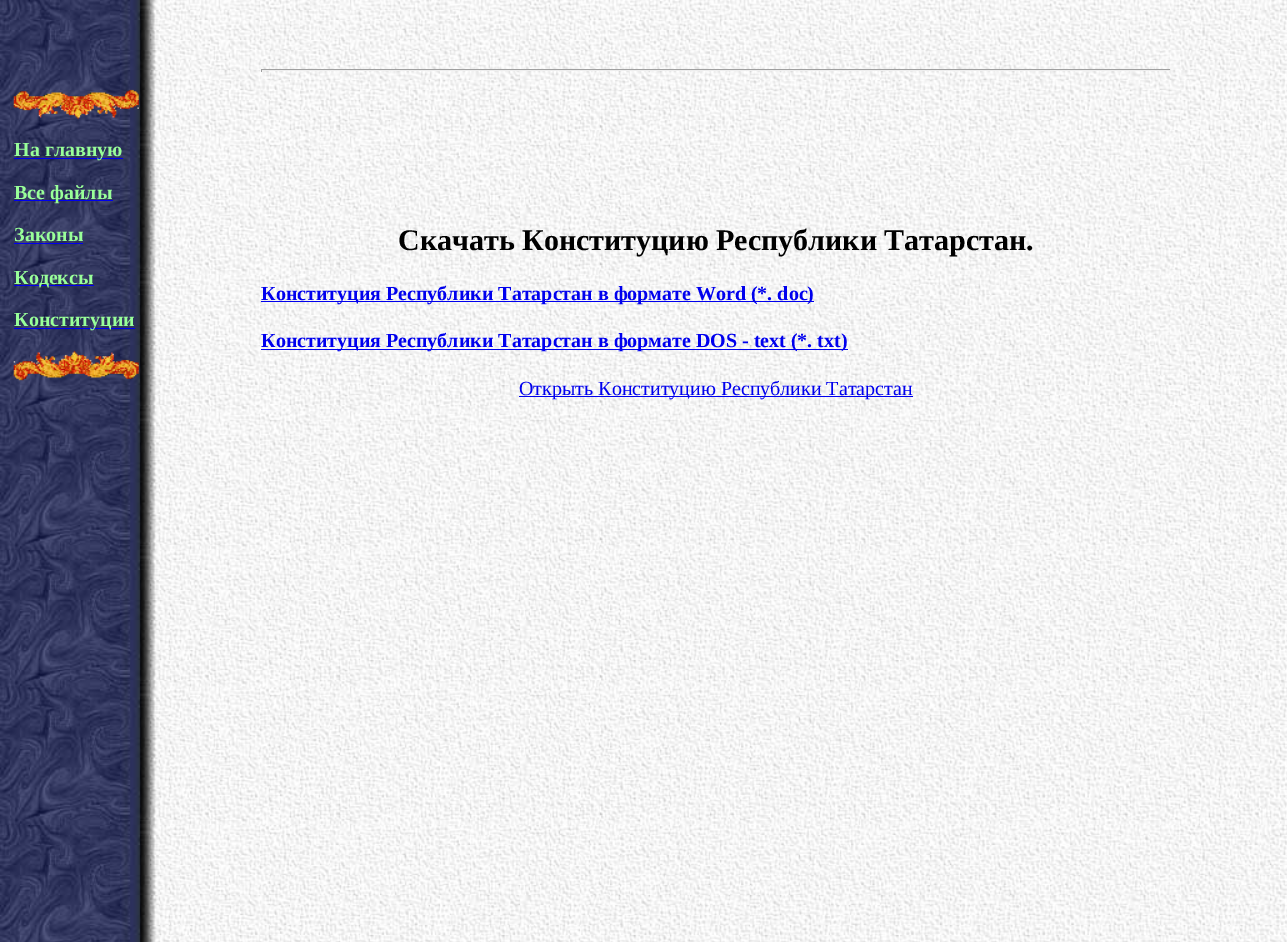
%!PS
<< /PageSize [1287 942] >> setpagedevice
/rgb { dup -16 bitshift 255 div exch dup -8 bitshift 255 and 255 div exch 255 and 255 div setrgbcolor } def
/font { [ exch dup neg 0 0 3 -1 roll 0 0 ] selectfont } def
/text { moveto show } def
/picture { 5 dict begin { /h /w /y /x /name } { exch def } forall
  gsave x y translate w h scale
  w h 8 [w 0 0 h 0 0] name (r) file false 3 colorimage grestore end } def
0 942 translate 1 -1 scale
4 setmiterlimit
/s1 { /LiberationSerif-Bold 20 font 16#99FF99 rgb } def
/s2 { /LiberationSerif-Bold 30 font 16#000000 rgb } def
/s3 { /LiberationSerif-Bold 20 font 16#0000EE rgb } def
/s4 { /LiberationSerif-Regular 20 font 16#0000EE rgb } def
16#FFFFFF rgb
0 0 1287 942 rectfill
(pic1.raw) 0 0 1287 942 picture
16#9F9F9F rgb
261 69 910 1 rectfill
16#EEEEEE rgb
1170 69 1 3 rectfill
261 70 910 1 rectfill
16#9F9F9F rgb
261 69 1 3 rectfill
(pic2.raw) 13 89 126 30 picture
16#0000EE rgb
14 158 109 1 rectfill
s1
(На главную) 14 156 text
16#0000EE rgb
14 200 99 1 rectfill
s1
(Все файлы) 14 199 text
(Законы) 14 241 text
16#0000EE rgb
14 243 69 1 rectfill
14 285 80 1 rectfill
s1
(Кодексы) 14 284 text
16#0000EE rgb
14 328 121 1 rectfill
s1
(Конституции) 14 326 text
(pic3.raw) 13 351 126 30 picture
s2
(Скачать Конституцию Республики Татарстан.) 398 250 text
16#0000EE rgb
261 301 553 1 rectfill
s3
(Конституция Республики Татарстан в формате Word \(*. doc\)) 261 300 text
261 349 587 1 rectfill
(Конституция Республики Татарстан в формате DOS - text \(*. txt\)) 261 347 text
519 396 394 1 rectfill
s4
(Открыть Конституцию Республики Татарстан) 519 395 text
showpage
